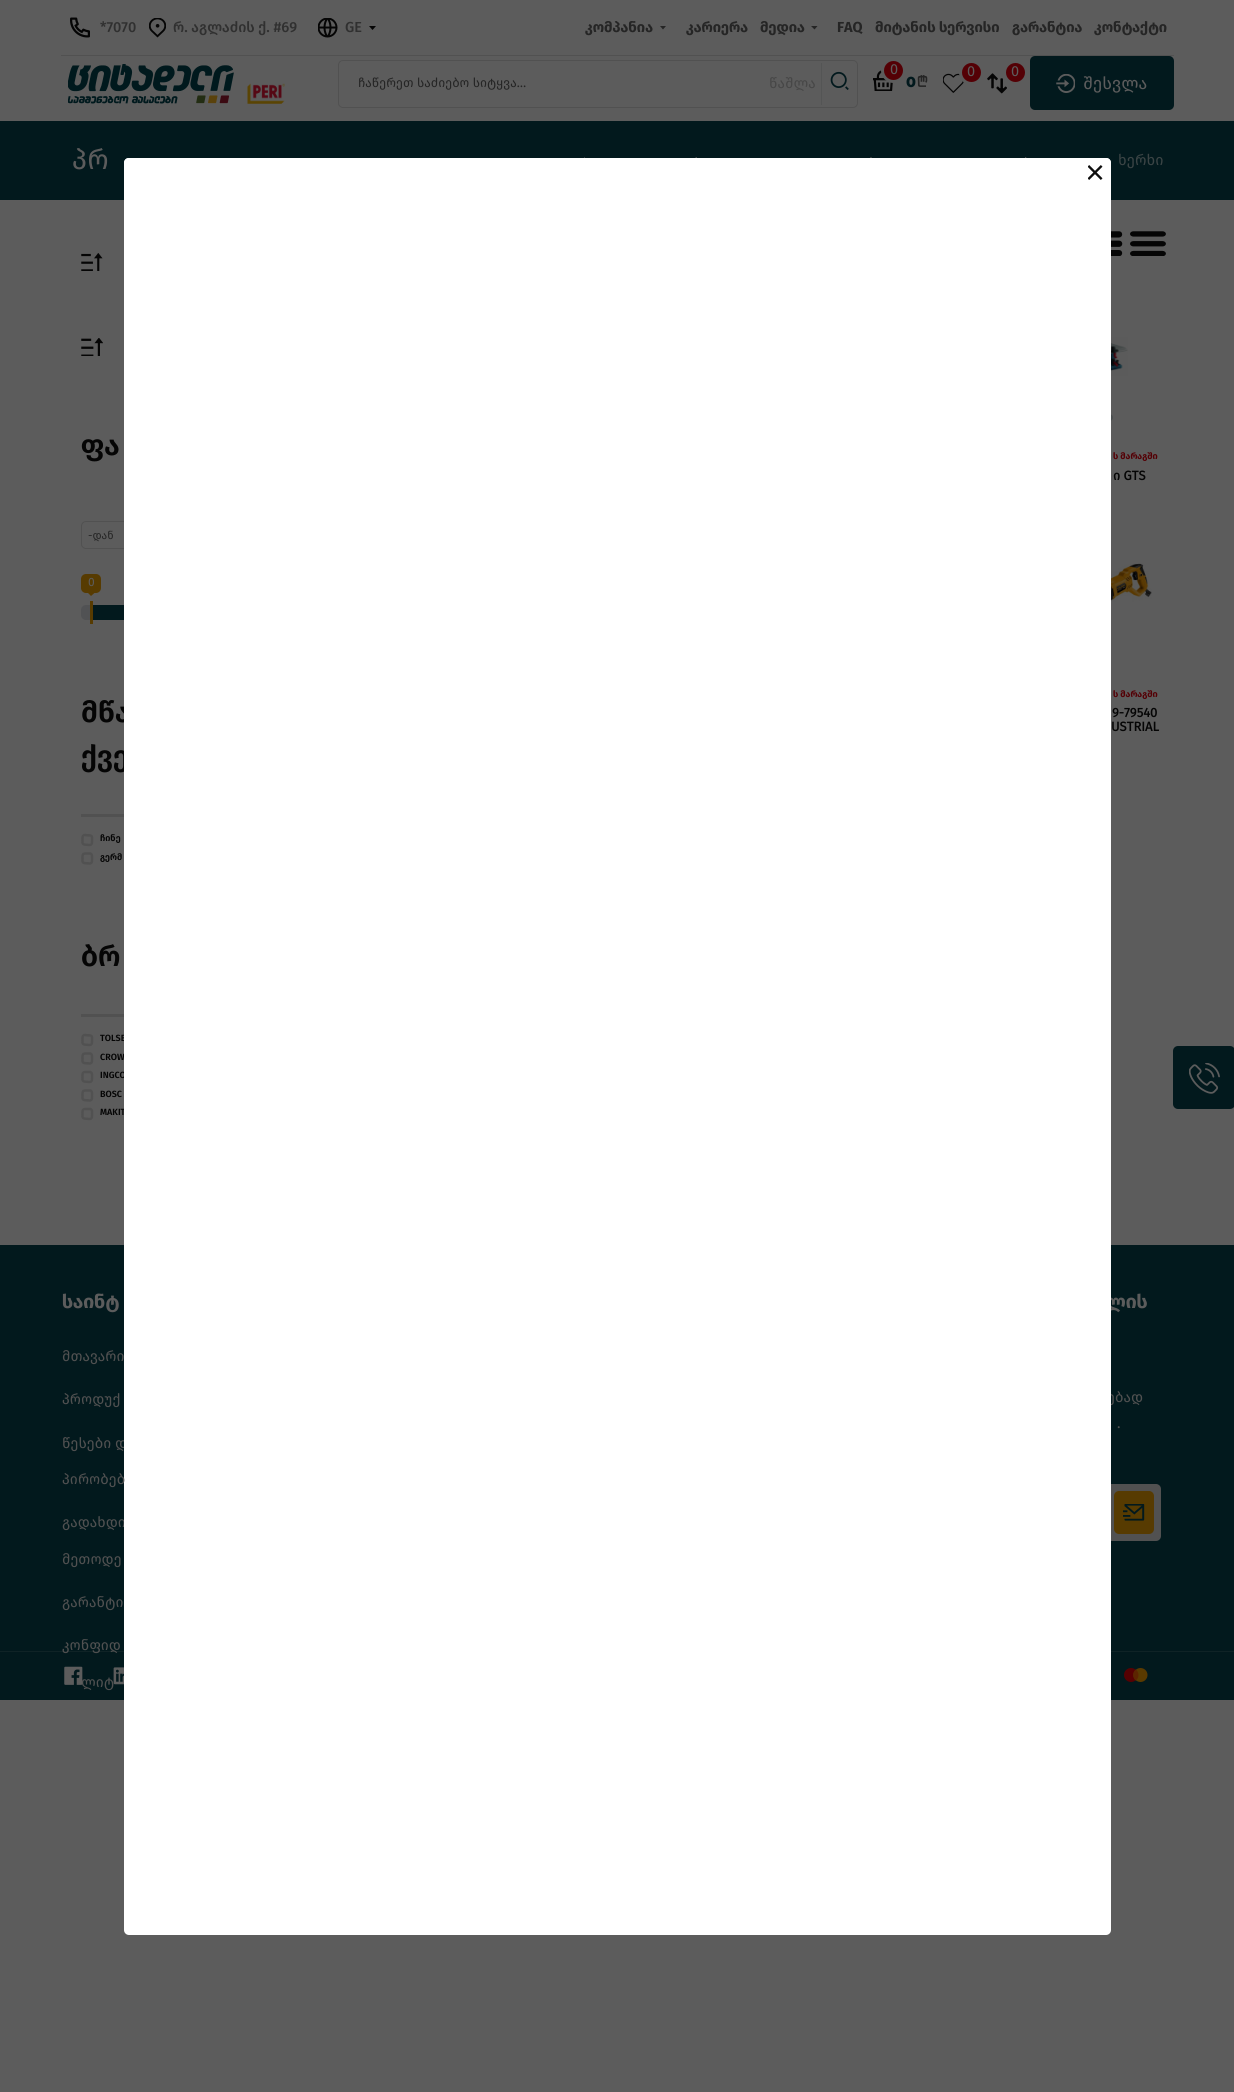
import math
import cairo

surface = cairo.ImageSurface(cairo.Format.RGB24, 1234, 2092)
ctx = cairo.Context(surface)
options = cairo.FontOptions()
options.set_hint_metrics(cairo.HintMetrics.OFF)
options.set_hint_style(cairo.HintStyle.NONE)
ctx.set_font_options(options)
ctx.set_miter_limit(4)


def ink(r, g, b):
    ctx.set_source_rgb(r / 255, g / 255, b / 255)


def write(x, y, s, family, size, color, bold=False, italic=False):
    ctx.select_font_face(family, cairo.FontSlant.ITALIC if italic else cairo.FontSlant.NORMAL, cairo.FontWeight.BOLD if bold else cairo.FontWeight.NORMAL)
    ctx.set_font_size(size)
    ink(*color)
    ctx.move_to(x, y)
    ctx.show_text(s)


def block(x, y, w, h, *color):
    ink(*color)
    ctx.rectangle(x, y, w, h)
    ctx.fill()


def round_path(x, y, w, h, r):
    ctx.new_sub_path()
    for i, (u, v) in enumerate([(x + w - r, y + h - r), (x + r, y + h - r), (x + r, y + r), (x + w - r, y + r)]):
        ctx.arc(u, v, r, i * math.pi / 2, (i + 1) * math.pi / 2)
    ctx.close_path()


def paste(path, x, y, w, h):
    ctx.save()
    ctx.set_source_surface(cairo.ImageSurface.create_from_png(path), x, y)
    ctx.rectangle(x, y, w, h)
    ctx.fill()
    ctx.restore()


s1 = dict(family="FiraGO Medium", size=14.5, color=(48, 48, 48))
s2 = dict(family="FiraGO", size=14.5, color=(37, 37, 37), bold=True)
s3 = dict(family="FiraGO", size=14.5, color=(92, 92, 92))
s4 = dict(family="Montserrat ExtraBold", size=14.5, color=(2, 25, 29))
s5 = dict(family="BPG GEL", size=14.5, color=(37, 37, 37), bold=True)
s6 = dict(family="FiraGO", size=12.7, color=(37, 37, 37))
s7 = dict(family="FiraGO", size=14.5, color=(71, 71, 71))
s8 = dict(family="FiraGO", size=17, color=(92, 92, 92))
s9 = dict(family="FiraGO", size=28, color=(92, 92, 92))
s10 = dict(family="FiraGO", size=15, color=(59, 68, 69))
s11 = dict(family="FiraGO SemiBold", size=29, color=(5, 5, 5))
s12 = dict(family="FiraGO SemiBold", size=9, color=(5, 5, 5))
s13 = dict(family="FiraGO", size=14.5, color=(81, 81, 81))
s14 = dict(family="FiraGO", size=19, color=(92, 92, 92), bold=True)
s15 = dict(family="FiraGO", size=11, color=(37, 37, 37))
s16 = dict(family="FiraGO", size=12, color=(92, 92, 92))
s17 = dict(family="FiraGO", size=9, color=(84, 0, 5), bold=True)
s18 = dict(family="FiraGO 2", size=13, color=(5, 5, 5), bold=True)

ink(92, 92, 92)
ctx.paint()
block(61, 55, 1113, 1, 81, 81, 81)
paste("pic1.png", 70, 17, 20, 21)
write(100, 32, "*7070", **s1)
paste("pic2.png", 149, 18, 17, 20)
write(173, 32, "რ. აგლაძის ქ. #69", **s1)
paste("pic3.png", 318, 18, 20, 20)
write(345, 32, "GE", **s1)
ink(5, 5, 5)
ctx.new_path()
ctx.move_to(372.5, 30)
ctx.line_to(369, 26)
ctx.line_to(376, 26)
ctx.close_path()
ctx.fill()
write(585, 32, "კომპანია", **s2)
ctx.new_path()
ctx.move_to(663, 29.5)
ctx.line_to(660, 26)
ctx.line_to(666, 26)
ctx.close_path()
ctx.fill()
write(686, 32, "კარიერა", **s2)
write(760, 32, "მედია", **s2)
ctx.new_path()
ctx.move_to(814.5, 29.5)
ctx.line_to(811, 26)
ctx.line_to(817.5, 26)
ctx.close_path()
ctx.fill()
write(837, 32, "FAQ", **s2)
write(875, 32, "მიტანის სერვისი", **s2)
write(1012, 32, "გარანტია", **s2)
write(1094, 32, "კონტაქტი", **s2)
paste("pic4.png", 68, 64, 166, 40)
paste("pic5.png", 247, 83, 38, 21)
paste("pic6.png", 873, 70, 20, 21)
ink(84, 0, 5)
ctx.arc(893.5, 70.5, 11, 0, 2 * math.pi)
ctx.fill_preserve()
ink(92, 92, 92)
ctx.set_line_width(3)
ctx.stroke()
write(890, 74, "0", **s3)
write(906, 87, "0", **s4)
write(916, 87, "o", **s5)
paste("pic7.png", 943, 73, 21, 20)
ink(84, 0, 5)
ctx.arc(971.5, 72.5, 11, 0, 2 * math.pi)
ctx.fill_preserve()
ink(92, 92, 92)
ctx.stroke()
write(967, 76, "0", **s3)
paste("pic8.png", 987, 73, 20, 21)
ink(84, 0, 5)
ctx.arc(1015.5, 72.5, 11, 0, 2 * math.pi)
ctx.fill_preserve()
ink(92, 92, 92)
ctx.stroke()
write(1011, 76, "0", **s3)
round_path(338.5, 60.5, 519, 47, 4.5)
ink(81, 81, 81)
ctx.set_line_width(1)
ctx.stroke()
write(358, 87, "ჩაწერეთ საძიებო სიტყვა…", **s6)
block(821, 63, 1, 42, 84, 85, 85)
write(769, 88, "წაშლა", **s7)
paste("pic9.png", 830, 71, 19, 19)
ink(2, 25, 29)
round_path(1030, 56, 144, 54, 5)
ctx.fill()
paste("pic10.png", 1056, 74, 19, 19)
write(1083, 89, "შესვლა", **s8)
block(0, 121, 1234, 79, 2, 25, 29)
write(72, 169, "პრ", **s9)
paste("pic11.png", 584, 157, 1, 1)
paste("pic12.png", 695, 157, 2, 1)
paste("pic13.png", 870, 157, 2, 1)
paste("pic14.png", 1025, 157, 2, 1)
write(1118, 165, "ხერხი", **s10)
round_path(81.5, 521.5, 111, 27, 4.5)
ink(81, 81, 81)
ctx.stroke()
ink(81, 82, 84)
round_path(81, 605, 233, 15, 5)
ctx.fill()
write(81, 722, "მწა", **s11)
write(81, 766, "ქვე", **s11)
write(100, 1041, "TOLSE", **s12)
write(100, 1060, "CROW", **s12)
write(100, 1078, "INGCO", **s12)
write(100, 1115, "MAKIT", **s12)
ink(74, 78, 79)
round_path(1105, 414, 8, 7, 3.5)
ctx.fill()
block(0, 1245, 1234, 455, 2, 25, 29)
block(0, 1651, 1234, 1, 15, 35, 38)
write(62, 1448, "წესები დ", **s13)
write(62, 1527, "გადახდი", **s13)
write(1106, 1308, "ლის", **s14)
write(1107, 1402, "ებად", **s13)
round_path(951, 1484, 210, 57, 5)
ctx.fill()
ink(255, 255, 255)
round_path(124, 158, 987, 1777, 5)
ctx.fill()
ctx.new_path()
ctx.move_to(129, 158)
ctx.line_to(1106, 158)
ctx.curve_to(1109, 158, 1111, 160, 1111, 163)
ctx.line_to(1111, 191)
ctx.line_to(124, 191)
ctx.line_to(124, 163)
ctx.curve_to(124, 160, 126, 158, 129, 158)
ctx.close_path()
ctx.fill()
paste("pic15.png", 1088, 165, 15, 15)
paste("pic16.png", 81, 253, 22, 18)
paste("pic17.png", 81, 338, 22, 18)
write(81, 455, "ფა", **s11)
write(88, 539, "-დან", **s15)
ink(87, 59, 1)
round_path(81, 574, 20, 19, 5)
ctx.fill()
write(88, 586, "0", **s16)
ink(87, 59, 1)
ctx.new_path()
ctx.move_to(87.5, 592.5)
ctx.line_to(95, 592.5)
ctx.line_to(91, 596)
ctx.close_path()
ctx.fill()
block(90, 601, 3, 23, 87, 59, 1)
block(93, 605, 31, 15, 2, 25, 29)
block(81, 814, 43, 3, 81, 81, 81)
ctx.new_path()
ctx.move_to(89.5, 845)
ctx.line_to(84, 844.5)
ctx.curve_to(82, 844, 82.5, 841.5, 82.5, 840)
ctx.curve_to(82.5, 838, 82, 835, 85, 835)
ctx.line_to(90.5, 835.5)
ctx.curve_to(92.5, 836, 92, 838.5, 92, 840)
ctx.curve_to(92, 842, 92.5, 845, 89.5, 845)
ctx.close_path()
ctx.set_line_width(2.5)
ctx.stroke()
write(100, 841, "ჩინე", **s12)
ctx.new_path()
ctx.move_to(89.5, 863.5)
ctx.line_to(84, 863)
ctx.curve_to(82, 862.5, 82.5, 860, 82.5, 858.5)
ctx.curve_to(82.5, 856.5, 82, 853.5, 85, 853.5)
ctx.line_to(90.5, 853.5)
ctx.curve_to(92.5, 854.5, 92, 857, 92, 858.5)
ctx.curve_to(92, 860.5, 92.5, 863.5, 89.5, 863.5)
ctx.close_path()
ink(81, 81, 81)
ctx.stroke()
write(100, 860, "გერმ", **s12)
block(81, 1014, 43, 3, 81, 81, 81)
write(81, 966, "ბრ", **s11)
ctx.new_path()
ctx.move_to(89.5, 1045)
ctx.line_to(84, 1044.5)
ctx.curve_to(82, 1044, 82.5, 1041.5, 82.5, 1040)
ctx.curve_to(82.5, 1038, 82, 1035, 85, 1035)
ctx.line_to(90.5, 1035.5)
ctx.curve_to(92.5, 1036, 92, 1038.5, 92, 1040)
ctx.curve_to(92, 1042, 92.5, 1045, 89.5, 1045)
ctx.close_path()
ink(81, 81, 81)
ctx.stroke()
ctx.new_path()
ctx.move_to(89.5, 1063.5)
ctx.line_to(84, 1063)
ctx.curve_to(82, 1062.5, 82.5, 1060, 82.5, 1058.5)
ctx.curve_to(82.5, 1056.5, 82, 1053.5, 85, 1053.5)
ctx.line_to(90.5, 1053.5)
ctx.curve_to(92.5, 1054.5, 92, 1057, 92, 1058.5)
ctx.curve_to(92, 1060.5, 92.5, 1063.5, 89.5, 1063.5)
ctx.close_path()
ctx.stroke()
ctx.new_path()
ctx.move_to(89.5, 1082)
ctx.line_to(84, 1081.5)
ctx.curve_to(82, 1081, 82.5, 1078.5, 82.5, 1077)
ctx.curve_to(82.5, 1075, 82, 1072, 85, 1072)
ctx.line_to(90.5, 1072)
ctx.curve_to(92.5, 1073, 92, 1075.5, 92, 1077)
ctx.curve_to(92, 1079, 92.5, 1082, 89.5, 1082)
ctx.close_path()
ctx.stroke()
ctx.new_path()
ctx.move_to(89.5, 1100.5)
ctx.line_to(84, 1100)
ctx.curve_to(82, 1099.5, 82.5, 1097, 82.5, 1095.5)
ctx.curve_to(82.5, 1093.5, 82, 1090.5, 85, 1090.5)
ctx.line_to(90.5, 1090.5)
ctx.curve_to(92.5, 1091.5, 92, 1093.5, 92, 1095.5)
ctx.curve_to(92, 1097.5, 92.5, 1100.5, 89.5, 1100.5)
ctx.close_path()
ctx.stroke()
write(100, 1097, "BOSC", **s12)
ctx.new_path()
ctx.move_to(89.5, 1119)
ctx.line_to(84, 1118.5)
ctx.curve_to(82, 1118, 82.5, 1115.5, 82.5, 1114)
ctx.curve_to(82.5, 1112, 82, 1109, 85, 1109)
ctx.line_to(90.5, 1109)
ctx.curve_to(92.5, 1110, 92, 1112, 92, 1114)
ctx.curve_to(92, 1116, 92.5, 1119, 89.5, 1119)
ctx.close_path()
ink(81, 81, 81)
ctx.stroke()
paste("pic18.png", 1111, 231, 12, 25)
paste("pic19.png", 1130, 231, 36, 25)
paste("pic20.png", 1111, 337, 17, 39)
write(1113, 459, "ს მარაგში", **s17)
write(1113, 480, "ი GTS", **s18)
paste("pic21.png", 1111, 563, 41, 58)
write(1113, 697, "ს მარაგში", **s17)
write(1112, 717, "9-79540", **s18)
write(1111, 731, "USTRIAL", **s18)
ink(2, 25, 29)
round_path(1173, 1046, 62, 63, 5)
ctx.fill()
paste("pic22.png", 1189, 1063, 31, 31)
write(62, 1308, "საინტ", **s14)
write(62, 1361, "მთავარი", **s13)
write(62, 1404, "პროდუქ", **s13)
write(62, 1484, "პირობებ", **s13)
write(62, 1564, "მეთოდე", **s13)
write(62, 1607, "გარანტი", **s13)
write(62, 1650, "კონფიდ", **s13)
write(81, 1687, "ლიტ", **s13)
write(1117, 1428, ".", **s13)
ink(87, 59, 1)
round_path(1114, 1491, 40, 43, 5)
ctx.fill()
paste("pic23.png", 1123, 1504, 22, 17)
paste("pic24.png", 64, 1666, 19, 19)
paste("pic25.png", 113, 1667, 11, 18)
paste("pic26.png", 1124, 1668, 24, 14)
surface.write_to_png("screenshot.png")
